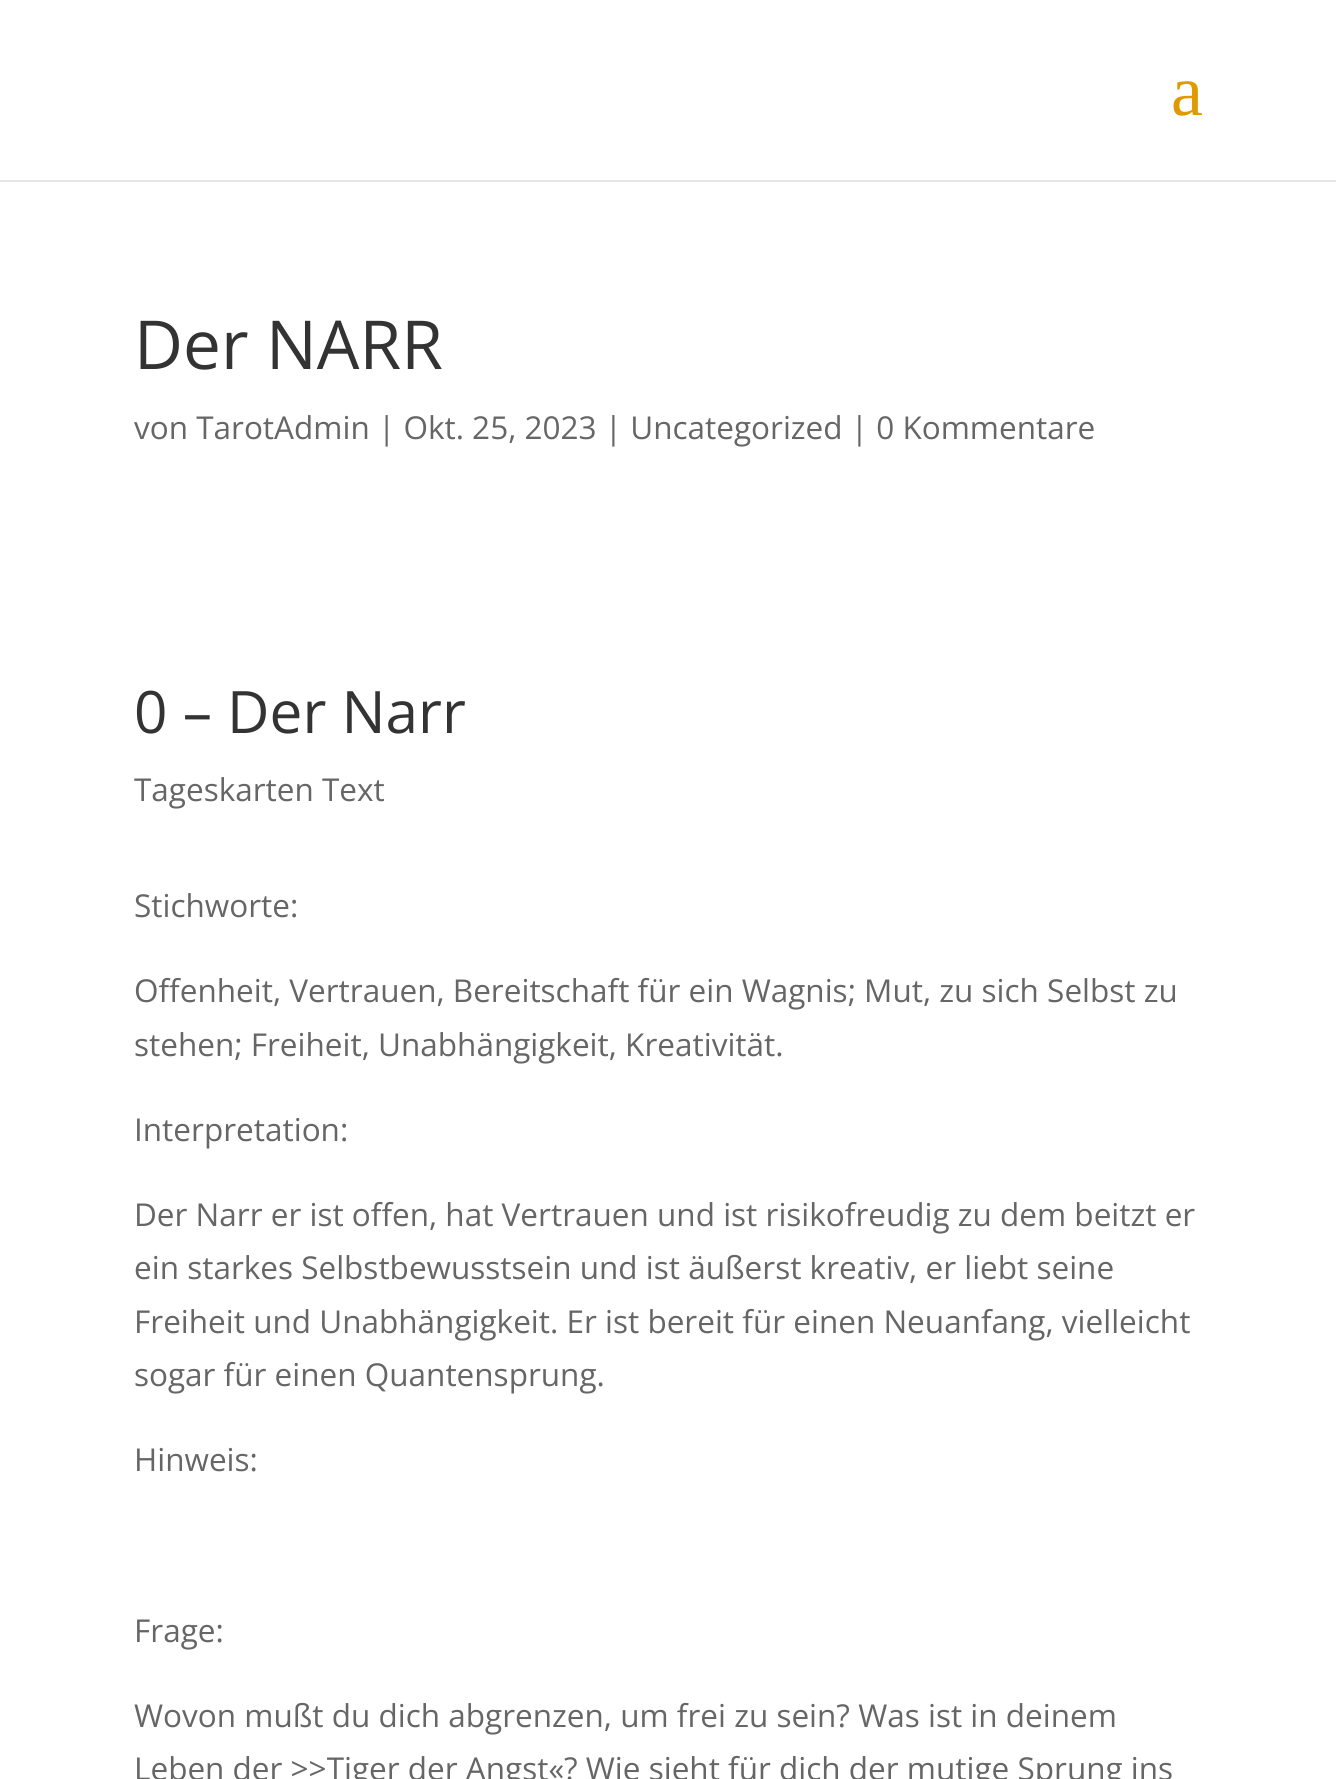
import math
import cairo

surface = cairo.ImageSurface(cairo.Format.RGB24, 1336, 1779)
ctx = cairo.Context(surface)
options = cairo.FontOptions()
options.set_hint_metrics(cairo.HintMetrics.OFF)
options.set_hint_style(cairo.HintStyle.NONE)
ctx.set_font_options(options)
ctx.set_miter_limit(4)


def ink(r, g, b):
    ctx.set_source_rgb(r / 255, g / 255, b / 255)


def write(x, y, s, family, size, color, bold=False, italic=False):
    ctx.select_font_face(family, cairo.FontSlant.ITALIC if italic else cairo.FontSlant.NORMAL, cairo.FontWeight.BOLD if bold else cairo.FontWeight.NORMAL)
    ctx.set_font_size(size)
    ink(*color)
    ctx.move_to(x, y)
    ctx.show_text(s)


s1 = dict(family="Liberation Serif", size=72, color=(224, 153, 0))
s2 = dict(family="Open Sans", size=67.5, color=(51, 51, 51))
s3 = dict(family="Open Sans", size=31.5, color=(102, 102, 102))
s4 = dict(family="Open Sans", size=58.5, color=(51, 51, 51))

ink(255, 255, 255)
ctx.paint()
ink(230, 230, 230)
ctx.new_path()
ctx.move_to(0, 180)
ctx.line_to(0, 182)
ctx.line_to(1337, 182)
ctx.line_to(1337, 2)
ctx.line_to(1336, 2)
ctx.line_to(1336, 180)
ctx.close_path()
ctx.fill()
write(1171, 115, "a", **s1)
write(134, 369, "Der NARR", **s2)
write(134, 439, "von TarotAdmin | Okt. 25, 2023 | Uncategorized | 0 Kommentare", **s3)
write(134, 733, "0 – Der Narr", **s4)
write(134, 801, "Tageskarten Text", **s3)
write(134, 917, "Stichworte:", **s3)
write(134, 1002, "Offenheit, Vertrauen, Bereitschaft für ein Wagnis; Mut, zu sich Selbst zu", **s3)
write(134, 1056, "stehen; Freiheit, Unabhängigkeit, Kreativität.", **s3)
write(134, 1141, "Interpretation:", **s3)
write(134, 1226, "Der Narr er ist offen, hat Vertrauen und ist risikofreudig zu dem beitzt er", **s3)
write(134, 1279, "ein starkes Selbstbewusstsein und ist äußerst kreativ, er liebt seine", **s3)
write(134, 1333, "Freiheit und Unabhängigkeit. Er ist bereit für einen Neuanfang, vielleicht", **s3)
write(134, 1386, "sogar für einen Quantensprung.", **s3)
write(134, 1471, "Hinweis:", **s3)
write(134, 1642, "Frage:", **s3)
write(134, 1727, "Wovon mußt du dich abgrenzen, um frei zu sein? Was ist in deinem", **s3)
write(134, 1780, "Leben der >>Tiger der Angst«? Wie sieht für dich der mutige Sprung ins", **s3)
surface.write_to_png("screenshot.png")
